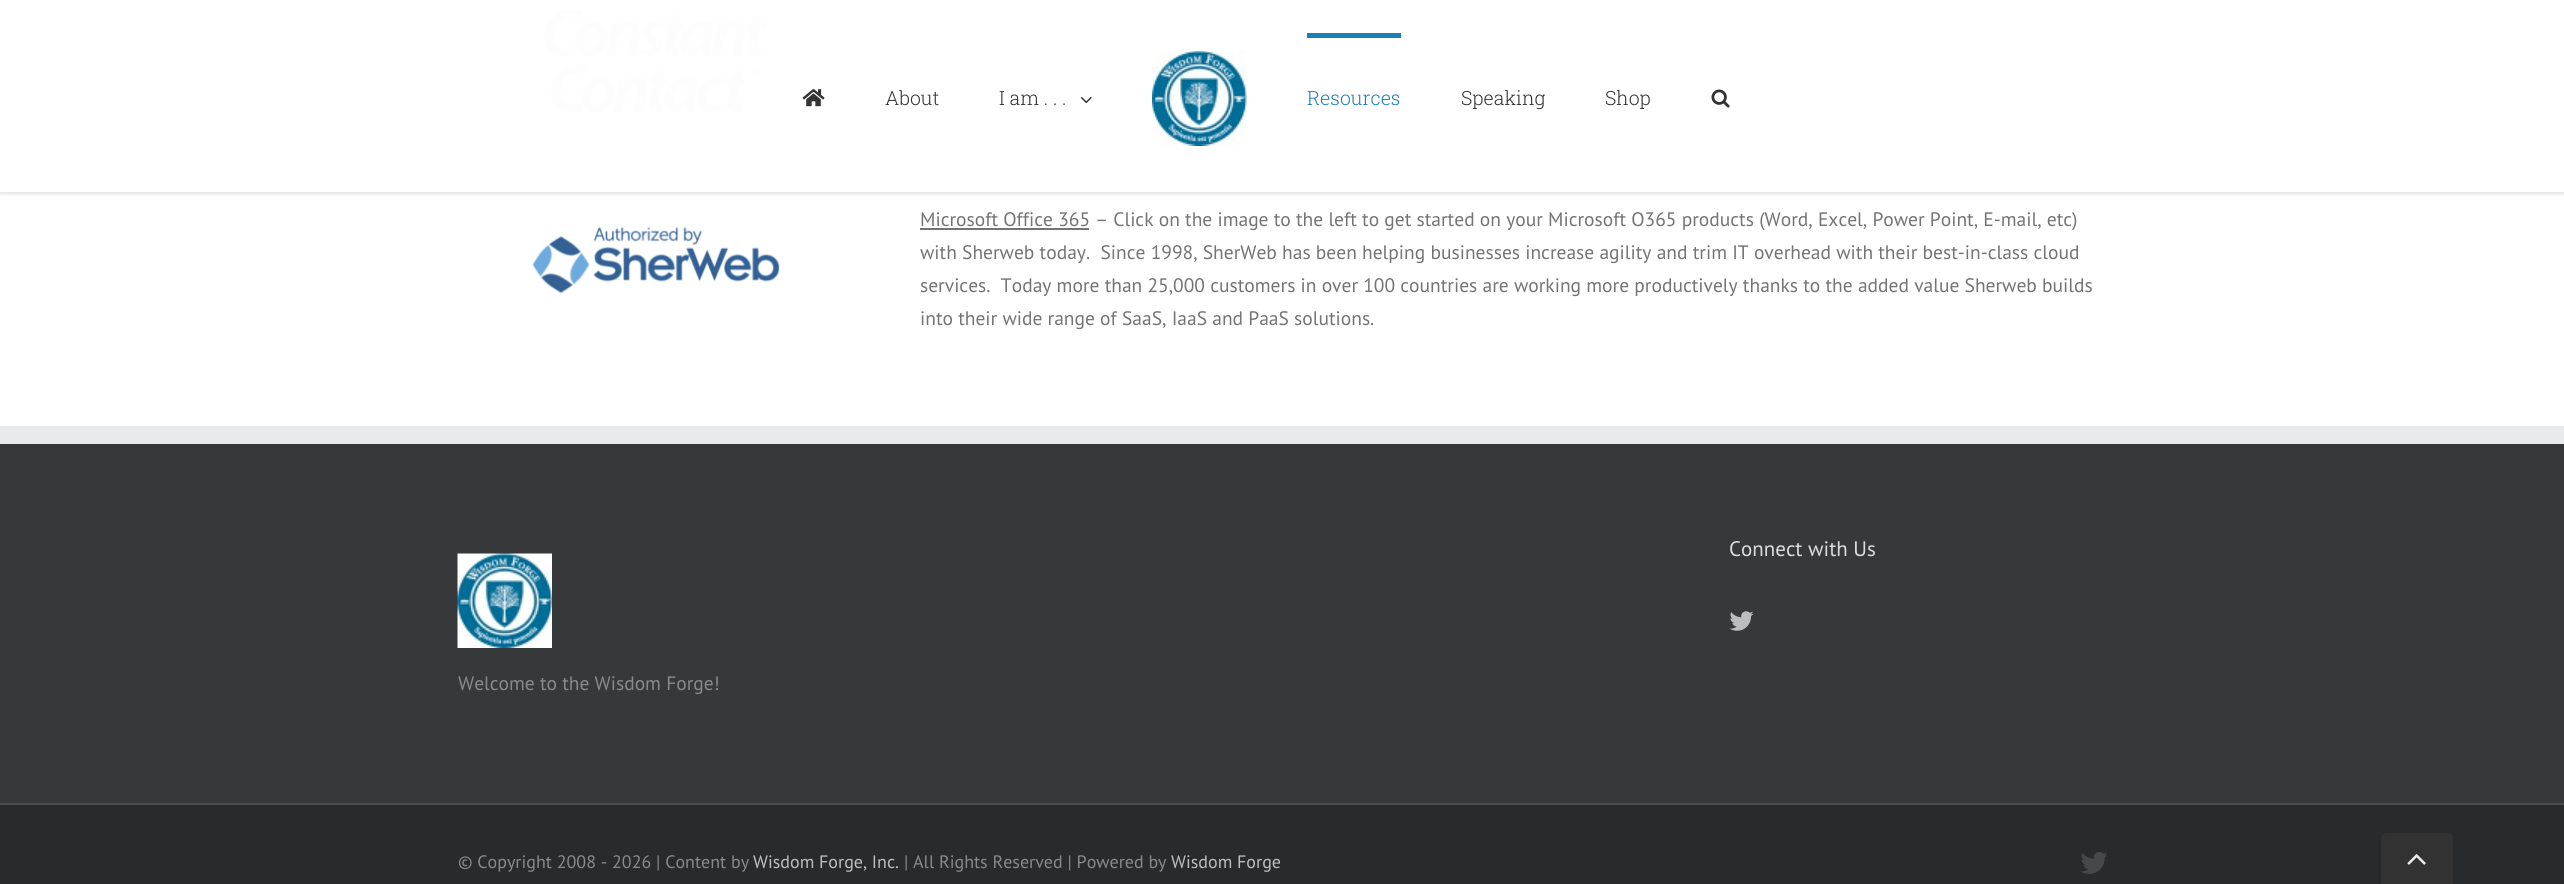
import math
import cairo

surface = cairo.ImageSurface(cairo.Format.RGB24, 2564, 884)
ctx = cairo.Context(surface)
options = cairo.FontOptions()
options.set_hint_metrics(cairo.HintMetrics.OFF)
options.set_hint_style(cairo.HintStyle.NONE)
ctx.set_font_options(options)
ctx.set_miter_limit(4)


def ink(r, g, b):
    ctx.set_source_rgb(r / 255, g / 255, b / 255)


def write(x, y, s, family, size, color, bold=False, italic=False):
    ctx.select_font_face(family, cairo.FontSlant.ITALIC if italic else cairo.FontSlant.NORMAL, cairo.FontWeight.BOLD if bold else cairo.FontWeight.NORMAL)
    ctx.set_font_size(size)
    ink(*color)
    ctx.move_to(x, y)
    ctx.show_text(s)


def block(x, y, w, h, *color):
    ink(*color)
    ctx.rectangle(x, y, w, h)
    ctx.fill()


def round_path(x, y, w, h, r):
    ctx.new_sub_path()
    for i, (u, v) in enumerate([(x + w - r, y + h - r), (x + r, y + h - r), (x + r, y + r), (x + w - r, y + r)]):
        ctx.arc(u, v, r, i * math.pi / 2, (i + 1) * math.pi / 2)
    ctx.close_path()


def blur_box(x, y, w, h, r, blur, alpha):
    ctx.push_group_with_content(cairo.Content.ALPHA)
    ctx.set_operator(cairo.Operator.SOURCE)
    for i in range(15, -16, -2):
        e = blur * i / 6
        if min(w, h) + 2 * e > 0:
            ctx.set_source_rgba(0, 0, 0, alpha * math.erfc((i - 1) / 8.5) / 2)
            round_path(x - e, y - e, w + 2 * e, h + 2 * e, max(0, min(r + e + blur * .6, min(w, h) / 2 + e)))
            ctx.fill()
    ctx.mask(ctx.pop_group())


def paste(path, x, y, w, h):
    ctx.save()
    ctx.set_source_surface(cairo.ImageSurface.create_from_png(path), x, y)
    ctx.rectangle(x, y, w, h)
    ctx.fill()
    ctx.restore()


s1 = dict(family="Roboto Slab Light", size=19.5, color=(51, 51, 51))
s2 = dict(family="Roboto Slab Light", size=19.5, color=(26, 128, 182))
s3 = dict(family="PT Sans", size=19.5, color=(116, 116, 116))
s4 = dict(family="PT Sans", size=21, color=(221, 221, 221))
s5 = dict(family="PT Sans", size=19.5, color=(140, 137, 137))
s6 = dict(family="PT Sans", size=18, color=(140, 137, 137))
s7 = dict(family="PT Sans", size=18, color=(191, 191, 191))

ink(255, 255, 255)
ctx.paint()
paste("pic5.png", 544, 0, 225, 113)
ctx.save()
ctx.rectangle(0, 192, 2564, 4)
ctx.clip()
ink(0, 0, 0)
blur_box(0, 2, 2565, 192, 0, 2, 0.12)
ctx.restore()
paste("pic1.png", 802, 89, 23, 18)
write(885, 105, "About", **s1)
write(999, 105, "I am . . .", **s1)
paste("pic2.png", 1080, 96, 12, 8)
paste("pic3.png", 1152, 51, 95, 95)
block(1307, 33, 94, 5, 26, 128, 182)
write(1307, 105, "Resources", **s2)
write(1461, 105, "Speaking", **s1)
write(1605, 105, "Shop", **s1)
paste("pic4.png", 1711, 89, 19, 19)
paste("pic6.png", 532, 226, 248, 68)
block(920, 228, 169, 2, 116, 116, 116)
write(920, 226, "Microsoft Office 365 – Click on the image to the left to get started on your Microsoft O365 products (Word, Excel, Power Point, E-mail, etc)", **s3)
write(920, 259, "with Sherweb today.  Since 1998, SherWeb has been helping businesses increase agility and trim IT overhead with their best-in-class cloud", **s3)
write(920, 292, "services.  Today more than 25,000 customers in over 100 countries are working more productively thanks to the added value Sherweb builds", **s3)
write(920, 325, "into their wide range of SaaS, IaaS and PaaS solutions.", **s3)
block(0, 444, 2564, 359, 54, 56, 57)
block(0, 426, 2564, 18, 233, 234, 238)
write(1729, 556, "Connect with Us", **s4)
paste("pic7.png", 1730, 611, 24, 20)
paste("pic8.png", 457, 553, 95, 95)
write(458, 690, "Welcome to the Wisdom Forge!", **s5)
block(0, 805, 2564, 79, 40, 42, 43)
block(0, 803, 2564, 2, 75, 76, 77)
write(458, 868, "© Copyright 2008 - 2026 | Content by", **s6)
write(753, 868, "Wisdom Forge, Inc.", **s7)
write(904, 868, "| All Rights Reserved | Powered by", **s6)
write(1171, 868, "Wisdom Forge", **s7)
paste("pic9.png", 2081, 852, 26, 22)
ink(50, 50, 50)
ctx.new_path()
ctx.move_to(2387, 833)
ctx.line_to(2447, 833)
ctx.curve_to(2450.5, 833, 2453, 835.5, 2453, 839)
ctx.line_to(2453, 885)
ctx.line_to(2381, 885)
ctx.line_to(2381, 839)
ctx.curve_to(2381, 835.5, 2383.5, 833, 2387, 833)
ctx.close_path()
ctx.fill()
paste("pic10.png", 2407, 854, 19, 11)
surface.write_to_png("screenshot.png")
